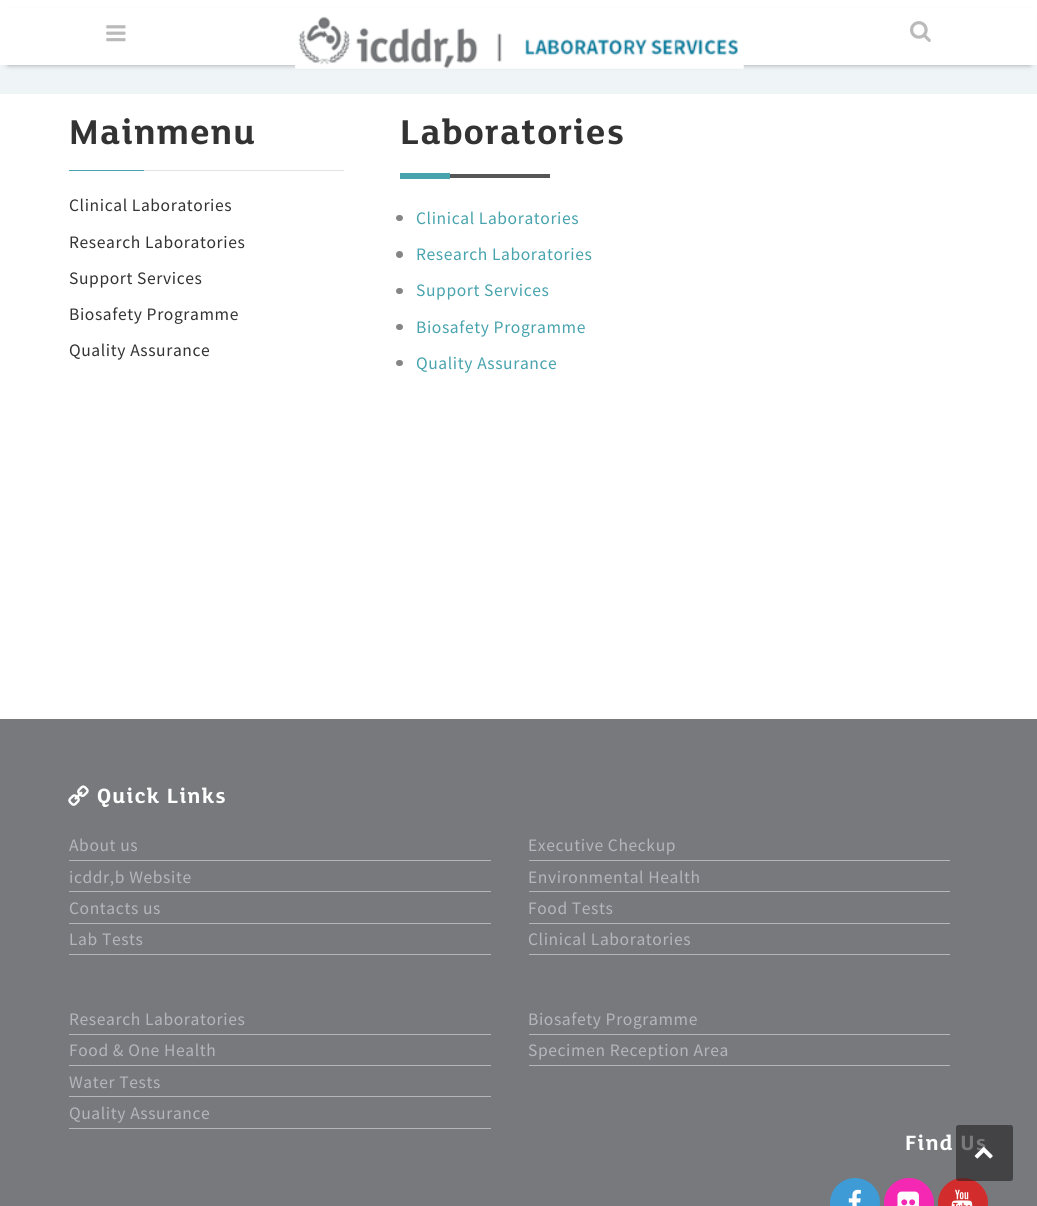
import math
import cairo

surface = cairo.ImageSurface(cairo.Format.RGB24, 1037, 1206)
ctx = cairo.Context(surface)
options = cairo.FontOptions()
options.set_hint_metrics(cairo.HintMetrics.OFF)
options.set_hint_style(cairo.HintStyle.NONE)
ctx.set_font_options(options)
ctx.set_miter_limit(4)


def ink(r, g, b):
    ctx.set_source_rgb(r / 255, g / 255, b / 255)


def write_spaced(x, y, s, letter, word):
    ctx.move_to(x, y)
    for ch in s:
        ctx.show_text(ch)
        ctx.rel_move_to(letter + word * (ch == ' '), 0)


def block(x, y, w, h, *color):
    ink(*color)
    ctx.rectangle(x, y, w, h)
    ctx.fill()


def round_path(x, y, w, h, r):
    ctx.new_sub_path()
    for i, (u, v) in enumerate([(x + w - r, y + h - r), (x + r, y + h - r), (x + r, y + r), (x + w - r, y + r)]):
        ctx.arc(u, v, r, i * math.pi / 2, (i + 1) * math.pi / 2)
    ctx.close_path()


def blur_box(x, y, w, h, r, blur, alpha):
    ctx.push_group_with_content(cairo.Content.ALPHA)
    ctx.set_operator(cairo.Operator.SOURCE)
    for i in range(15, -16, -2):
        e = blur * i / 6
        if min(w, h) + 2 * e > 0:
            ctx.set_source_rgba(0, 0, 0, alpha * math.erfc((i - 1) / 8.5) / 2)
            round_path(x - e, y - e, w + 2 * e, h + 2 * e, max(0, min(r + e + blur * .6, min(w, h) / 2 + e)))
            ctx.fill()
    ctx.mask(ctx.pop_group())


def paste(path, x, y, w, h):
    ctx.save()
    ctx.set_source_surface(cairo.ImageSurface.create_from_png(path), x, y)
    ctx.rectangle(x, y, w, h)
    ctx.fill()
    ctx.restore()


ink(255, 255, 255)
ctx.paint()
block(0, 65, 1037, 29, 239, 244, 247)
ink(0, 0, 0)
blur_box(8, 14, 1022, 50, 0, 3, 0.5)
block(2, 8, 1034, 57, 255, 255, 255)
paste("pic1.png", 106, 25, 20, 17)
paste("pic2.png", 295, 16, 449, 53)
paste("pic3.png", 910, 21, 21, 21)
ctx.select_font_face("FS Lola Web", cairo.FontSlant.NORMAL, cairo.FontWeight.BOLD)
ctx.set_font_size(37.5)
ink(51, 51, 51)
write_spaced(69, 144, "Mainmenu", 1.25, 0)
block(69, 170, 75, 1, 71, 163, 173)
block(144, 170, 200, 1, 227, 227, 227)
ctx.select_font_face("Source Sans Pro")
ctx.set_font_size(17.5)
ink(51, 51, 51)
write_spaced(69, 211, "Clinical Laboratories", 0.6, 0)
write_spaced(69, 248, "Research Laboratories", 0.6, 0)
write_spaced(69, 284, "Support Services", 0.6, 0)
write_spaced(69, 320, "Biosafety Programme", 0.6, 0)
write_spaced(69, 356, "Quality Assurance", 0.6, 0)
ctx.select_font_face("FS Lola Web", cairo.FontSlant.NORMAL, cairo.FontWeight.BOLD)
ctx.set_font_size(37.5)
write_spaced(400, 144, "Laboratories", 1.25, 0)
block(400, 173, 50, 6, 71, 163, 173)
block(450, 174, 100, 4, 86, 86, 86)
ink(133, 133, 133)
round_path(396, 215, 7, 6, 3)
ctx.fill()
ctx.select_font_face("Source Sans Pro")
ctx.set_font_size(17.5)
ink(71, 163, 173)
write_spaced(416, 224, "Clinical Laboratories", 0.6, 0)
ink(133, 133, 133)
ctx.new_path()
ctx.arc(399.5, 254.5, 3.5, 0, 2 * math.pi)
ctx.fill()
ink(71, 163, 173)
write_spaced(416, 260, "Research Laboratories", 0.6, 0)
ink(133, 133, 133)
round_path(396, 288, 7, 6, 3)
ctx.fill()
ink(71, 163, 173)
write_spaced(416, 296, "Support Services", 0.6, 0)
ink(133, 133, 133)
round_path(396, 324, 7, 6, 3)
ctx.fill()
ink(71, 163, 173)
write_spaced(416, 333, "Biosafety Programme", 0.6, 0)
ink(133, 133, 133)
round_path(396, 360, 7, 6, 3)
ctx.fill()
ink(71, 163, 173)
write_spaced(416, 369, "Quality Assurance", 0.6, 0)
block(0, 719, 1037, 487, 119, 121, 125)
paste("pic4.png", 68, 785, 21, 21)
ctx.select_font_face("FS Lola Web", cairo.FontSlant.NORMAL, cairo.FontWeight.BOLD)
ctx.set_font_size(22.5)
ink(255, 255, 255)
write_spaced(97, 803, "Quick Links", 1.25, 0)
block(69, 860, 422, 1, 181, 182, 188)
ctx.select_font_face("Source Sans Pro")
ctx.set_font_size(17.5)
write_spaced(69, 851, "About us", 0.6, 0)
block(69, 891, 422, 1, 181, 182, 188)
write_spaced(69, 883, "icddr,b Website", 0.6, 0)
block(69, 923, 422, 1, 181, 182, 188)
write_spaced(69, 914, "Contacts us", 0.6, 0)
block(69, 954, 422, 1, 181, 182, 188)
write_spaced(69, 945, "Lab Tests", 0.6, 0)
block(529, 860, 421, 1, 181, 182, 188)
write_spaced(528, 851, "Executive Checkup", 0.6, 0)
block(529, 891, 421, 1, 181, 182, 188)
write_spaced(528, 883, "Environmental Health", 0.6, 0)
block(529, 923, 421, 1, 181, 182, 188)
write_spaced(528, 914, "Food Tests", 0.6, 0)
block(529, 954, 421, 1, 181, 182, 188)
write_spaced(528, 945, "Clinical Laboratories", 0.6, 0)
block(69, 1034, 422, 1, 181, 182, 188)
write_spaced(69, 1025, "Research Laboratories", 0.6, 0)
block(69, 1065, 422, 1, 181, 182, 188)
write_spaced(69, 1056, "Food & One Health", 0.6, 0)
block(69, 1096, 422, 1, 181, 182, 188)
write_spaced(69, 1088, "Water Tests", 0.6, 0)
block(69, 1128, 422, 1, 181, 182, 188)
write_spaced(69, 1119, "Quality Assurance", 0.6, 0)
block(529, 1034, 421, 1, 181, 182, 188)
write_spaced(528, 1025, "Biosafety Programme", 0.6, 0)
block(529, 1065, 421, 1, 181, 182, 188)
write_spaced(528, 1056, "Specimen Reception Area", 0.6, 0)
ctx.select_font_face("FS Lola Web", cairo.FontSlant.NORMAL, cairo.FontWeight.BOLD)
ctx.set_font_size(22.5)
ink(255, 255, 255)
write_spaced(905, 1150, "Find Us", 1.25, 0)
ink(63, 155, 213)
ctx.new_path()
ctx.arc(855, 1203, 25, 0, 2 * math.pi)
ctx.fill()
paste("pic5.png", 848, 1189, 13, 17)
ink(244, 40, 179)
ctx.arc(909, 1203, 25, 0, 2 * math.pi)
ctx.fill()
paste("pic6.png", 897, 1191, 22, 15)
ink(210, 44, 44)
ctx.arc(963, 1203, 25, 0, 2 * math.pi)
ctx.fill()
paste("pic7.png", 951, 1189, 22, 17)
ctx.set_source_rgba(0.129, 0.129, 0.129, 0.6)
round_path(956, 1125, 57, 56, 2.5)
ctx.fill()
paste("pic8.png", 974, 1147, 19, 12)
surface.write_to_png("screenshot.png")
